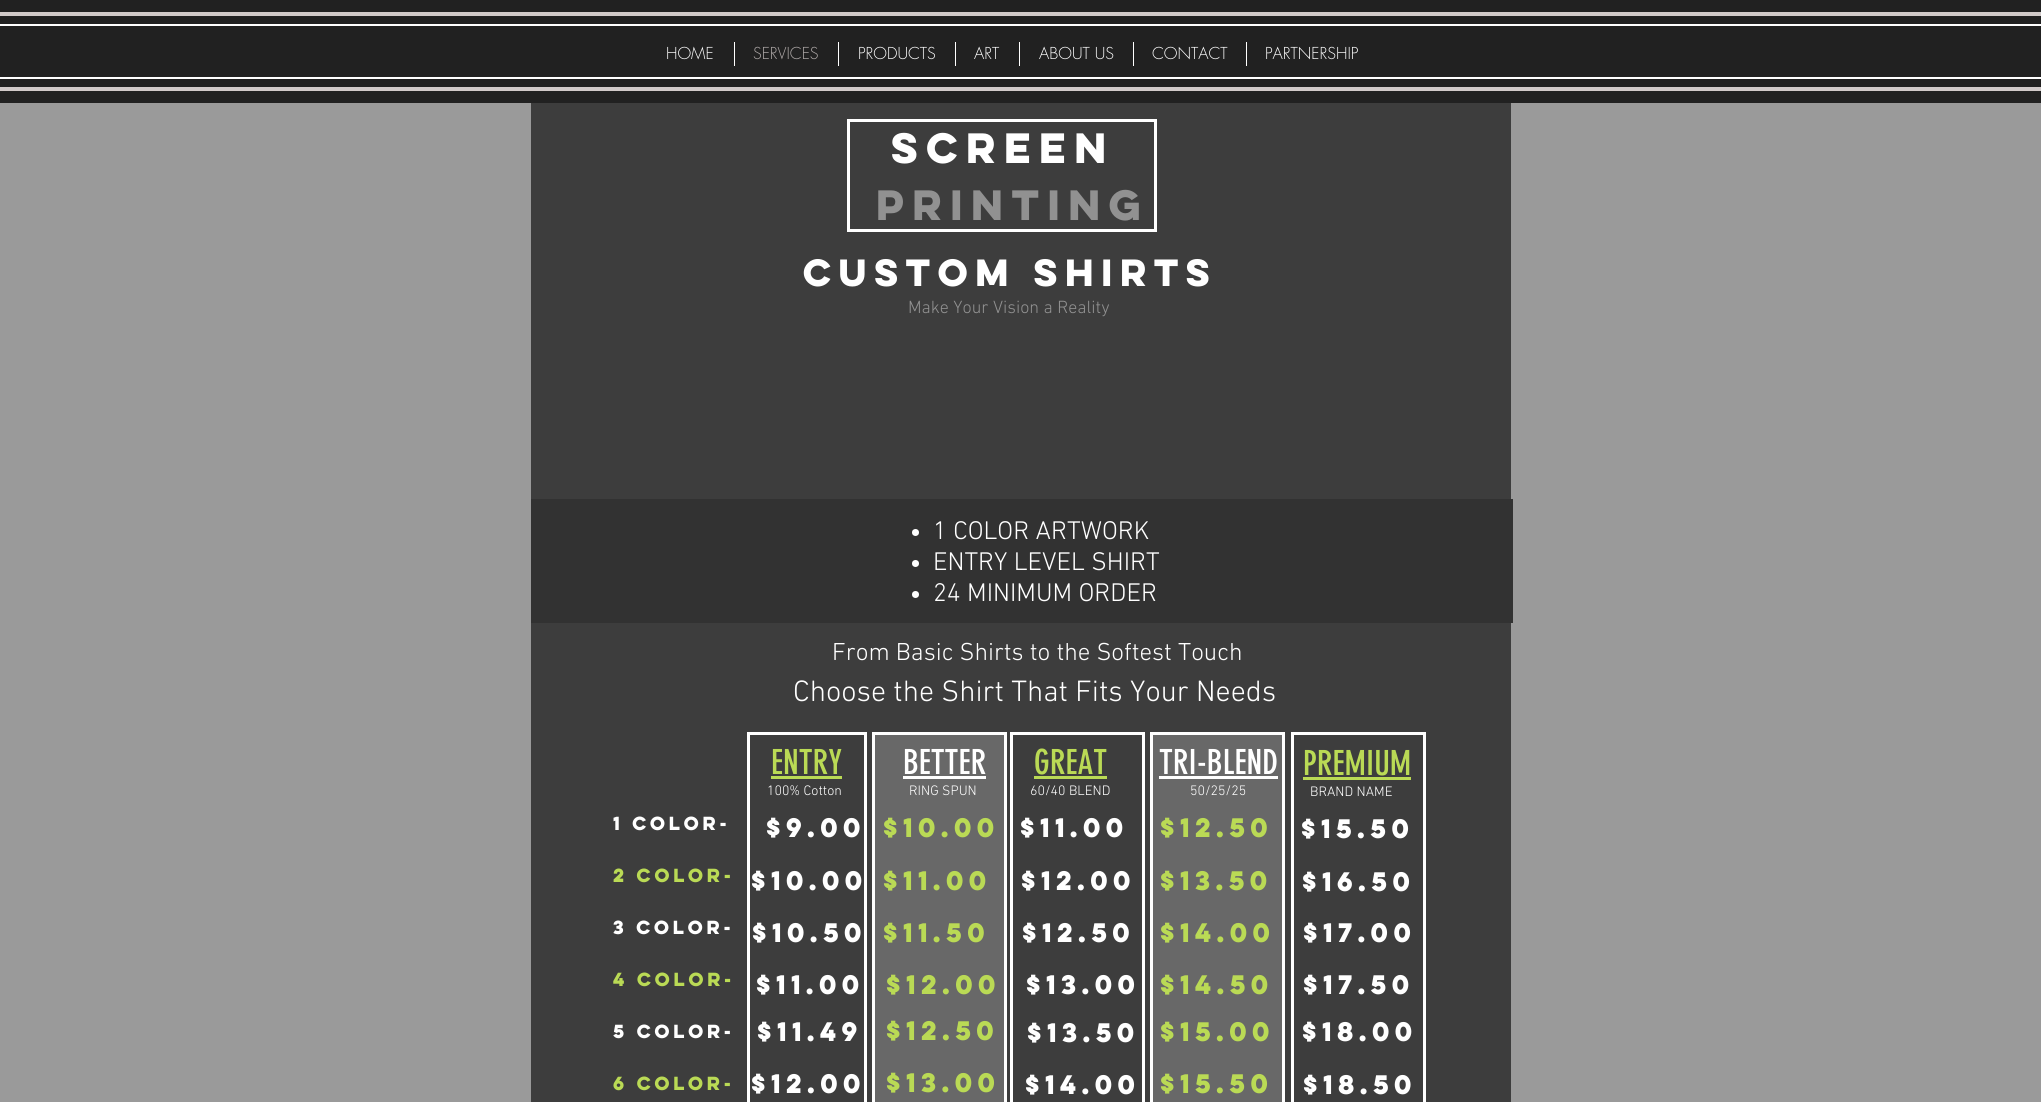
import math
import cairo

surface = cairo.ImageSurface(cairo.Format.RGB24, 2041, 1102)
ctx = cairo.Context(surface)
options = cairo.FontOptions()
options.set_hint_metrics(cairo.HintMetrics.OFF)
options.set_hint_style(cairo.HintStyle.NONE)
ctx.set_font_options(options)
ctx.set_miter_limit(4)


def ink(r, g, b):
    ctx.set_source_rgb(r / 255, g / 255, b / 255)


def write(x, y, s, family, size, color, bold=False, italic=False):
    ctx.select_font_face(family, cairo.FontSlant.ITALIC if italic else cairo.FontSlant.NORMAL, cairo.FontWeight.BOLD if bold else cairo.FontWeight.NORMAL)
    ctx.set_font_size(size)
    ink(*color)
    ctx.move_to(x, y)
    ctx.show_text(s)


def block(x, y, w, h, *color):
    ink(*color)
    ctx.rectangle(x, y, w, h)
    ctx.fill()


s1 = dict(family="futura Light", size=16, color=(255, 255, 255))
s2 = dict(family="futura Light", size=16, color=(176, 170, 169))
s3 = dict(family="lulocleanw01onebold", size=38, color=(255, 255, 255), bold=True)
s4 = dict(family="lulocleanw01onebold", size=38, color=(145, 145, 145), bold=True)
s5 = dict(family="lulocleanw01onebold", size=34, color=(255, 255, 255), bold=True)
s6 = dict(family="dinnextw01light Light", size=18, color=(145, 145, 145))
s7 = dict(family="dinnextw01light Light", size=26, color=(255, 255, 255))
s8 = dict(family="dinnextw01light Light", size=25, color=(255, 255, 255))
s9 = dict(family="dinnextw01light Light", size=30, color=(255, 255, 255))
s10 = dict(family="lulocleanw01onebold", size=17, color=(255, 255, 255), bold=True)
s11 = dict(family="lulocleanw01onebold", size=17, color=(186, 218, 85), bold=True)
s12 = dict(family="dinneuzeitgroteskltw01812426", size=34, color=(186, 218, 85))
s13 = dict(family="dinnextw01light Light", size=14, color=(255, 255, 255))
s14 = dict(family="lulocleanw01onebold", size=24, color=(255, 255, 255), bold=True)
s15 = dict(family="dinneuzeitgroteskltw01812426", size=34, color=(255, 255, 255))
s16 = dict(family="lulocleanw01onebold", size=24, color=(186, 218, 85), bold=True)

ink(154, 154, 154)
ctx.paint()
block(0, 0, 2041, 103, 33, 33, 33)
block(0, 12, 2041, 4, 209, 202, 201)
block(0, 87, 2041, 4, 209, 202, 201)
block(0, 24, 2041, 2, 255, 255, 255)
block(0, 77, 2041, 2, 255, 255, 255)
write(666, 59, "HOME", **s1)
block(734, 42, 1, 24, 255, 255, 255)
write(753, 59, "SERVICES", **s2)
block(838, 42, 1, 24, 255, 255, 255)
write(858, 59, "PRODUCTS", **s1)
block(955, 42, 1, 24, 255, 255, 255)
write(974, 59, "ART", **s1)
block(1019, 42, 1, 24, 255, 255, 255)
write(1039, 59, "ABOUT US", **s1)
block(1133, 42, 1, 24, 255, 255, 255)
write(1152, 59, "CONTACT", **s1)
block(1246, 42, 1, 24, 255, 255, 255)
write(1265, 59, "PARTNERSHIP", **s1)
block(531, 103, 980, 999, 61, 61, 61)
ctx.rectangle(848.5, 120.5, 307, 110)
ink(255, 255, 255)
ctx.set_line_width(3)
ctx.stroke()
write(891, 163, "Screen", **s3)
write(876, 220, "Printing", **s4)
write(803, 286, "Custom Shirts", **s5)
write(908, 313, "Make Your Vision a Reality", **s6)
block(531, 499, 982, 124, 50, 50, 50)
ink(255, 255, 255)
ctx.new_path()
ctx.arc(915.5, 532.5, 3.5, 0, 2 * math.pi)
ctx.fill()
write(933, 539, "1 COLOR ARTWORK", **s7)
ctx.new_path()
ctx.arc(915.5, 563.5, 3.5, 0, 2 * math.pi)
ctx.fill()
write(933, 570, "ENTRY LEVEL SHIRT", **s7)
ctx.new_path()
ctx.arc(915.5, 594.5, 3.5, 0, 2 * math.pi)
ctx.fill()
write(933, 601, "24 MINIMUM ORDER", **s7)
write(832, 660, "From Basic Shirts to the Softest Touch", **s8)
write(793, 701, "Choose the Shirt That Fits Your Needs", **s9)
write(613, 830, "1 Color-", **s10)
write(613, 882, "2 Color-", **s11)
write(613, 934, "3 Color-", **s10)
write(613, 986, "4 Color-", **s11)
write(613, 1038, "5 Color-", **s10)
write(613, 1090, "6 Color-", **s11)
ctx.rectangle(748.5, 733.5, 117, 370)
ink(255, 255, 255)
ctx.stroke()
write(771, 774, "ENTRY", **s12)
block(771, 776, 71, 3, 186, 218, 85)
write(767, 795, "100% Cotton", **s13)
write(766, 837, "$9.00", **s14)
write(751, 890, "$10.00", **s14)
write(752, 942, "$10.50", **s14)
write(756, 994, "$11.00", **s14)
write(757, 1041, "$11.49", **s14)
write(751, 1093, "$12.00", **s14)
ink(104, 104, 104)
ctx.rectangle(873.5, 733.5, 132, 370)
ctx.fill_preserve()
ink(255, 255, 255)
ctx.stroke()
write(903, 774, "BETTER", **s15)
block(903, 776, 83, 3, 255, 255, 255)
write(909, 795, "RING SPUN", **s13)
write(883, 837, "$10.00", **s16)
write(883, 890, "$11.00", **s16)
write(883, 942, "$11.50", **s16)
write(886, 994, "$12.00", **s16)
write(886, 1040, "$12.50", **s16)
write(886, 1092, "$13.00", **s16)
ctx.rectangle(1011.5, 733.5, 132, 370)
ink(255, 255, 255)
ctx.stroke()
write(1034, 774, "GREAT", **s12)
block(1034, 776, 73, 3, 186, 218, 85)
write(1030, 795, "60/40 BLEND", **s13)
write(1020, 837, "$11.00", **s14)
write(1021, 890, "$12.00", **s14)
write(1022, 942, "$12.50", **s14)
write(1026, 994, "$13.00", **s14)
write(1027, 1042, "$13.50", **s14)
write(1025, 1094, "$14.00", **s14)
ink(104, 104, 104)
ctx.rectangle(1151.5, 733.5, 132, 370)
ctx.fill_preserve()
ink(255, 255, 255)
ctx.stroke()
write(1159, 774, "TRI-BLEND", **s15)
block(1159, 776, 119, 3, 255, 255, 255)
write(1190, 795, "50/25/25", **s13)
write(1160, 837, "$12.50", **s16)
write(1160, 890, "$13.50", **s16)
write(1160, 942, "$14.00", **s16)
write(1160, 994, "$14.50", **s16)
write(1160, 1041, "$15.00", **s16)
write(1160, 1093, "$15.50", **s16)
ctx.rectangle(1292.5, 733.5, 132, 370)
ink(255, 255, 255)
ctx.stroke()
write(1303, 775, "PREMIUM", **s12)
block(1303, 777, 108, 3, 186, 218, 85)
write(1310, 796, "BRAND NAME", **s13)
write(1301, 838, "$15.50", **s14)
write(1302, 891, "$16.50", **s14)
write(1303, 942, "$17.00", **s14)
write(1303, 994, "$17.50", **s14)
write(1302, 1041, "$18.00", **s14)
write(1303, 1094, "$18.50", **s14)
surface.write_to_png("screenshot.png")
